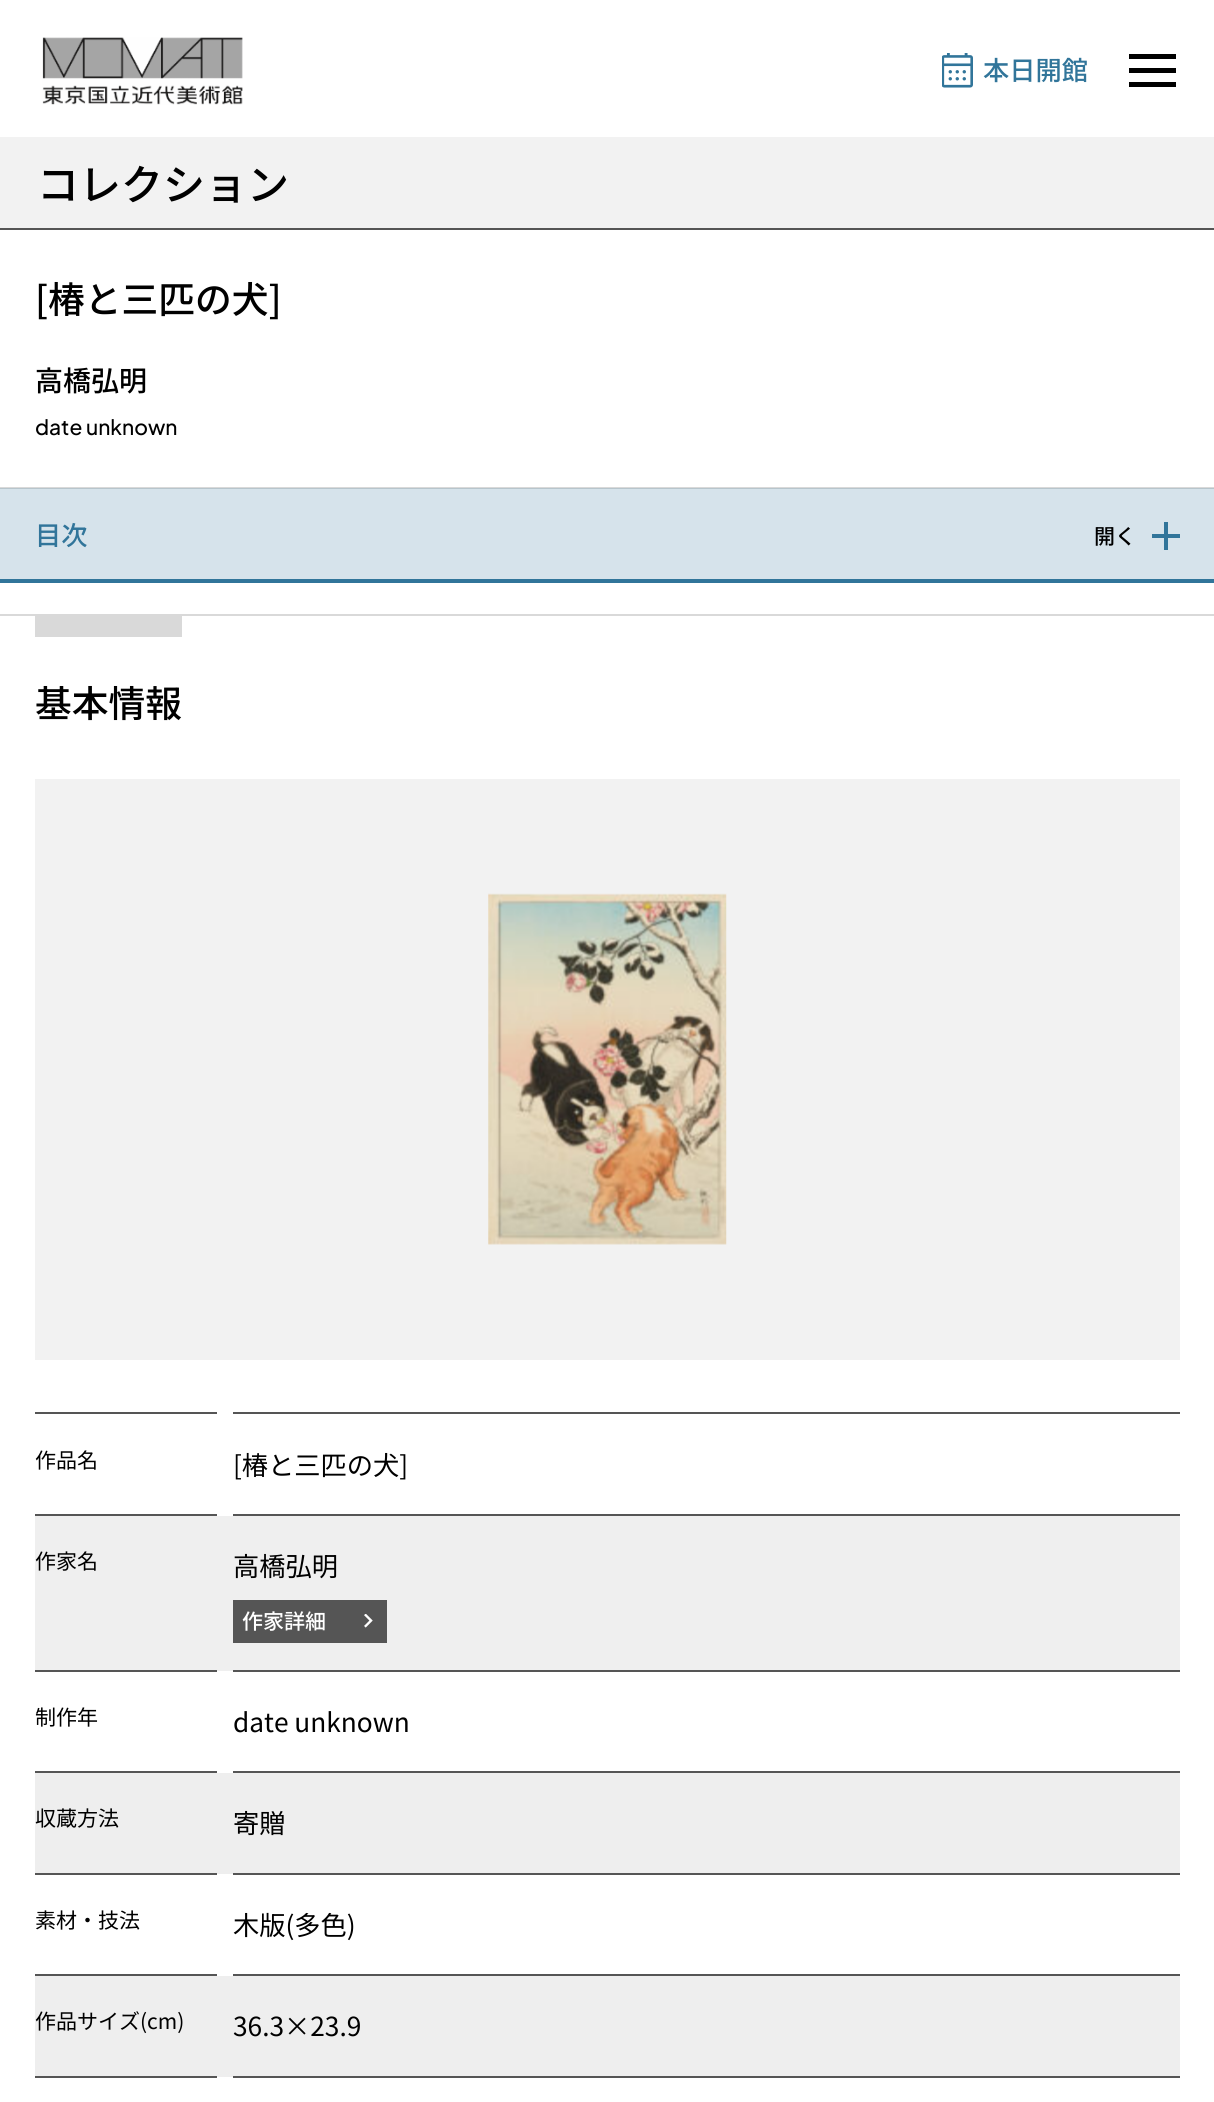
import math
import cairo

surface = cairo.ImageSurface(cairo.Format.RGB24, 1214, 2102)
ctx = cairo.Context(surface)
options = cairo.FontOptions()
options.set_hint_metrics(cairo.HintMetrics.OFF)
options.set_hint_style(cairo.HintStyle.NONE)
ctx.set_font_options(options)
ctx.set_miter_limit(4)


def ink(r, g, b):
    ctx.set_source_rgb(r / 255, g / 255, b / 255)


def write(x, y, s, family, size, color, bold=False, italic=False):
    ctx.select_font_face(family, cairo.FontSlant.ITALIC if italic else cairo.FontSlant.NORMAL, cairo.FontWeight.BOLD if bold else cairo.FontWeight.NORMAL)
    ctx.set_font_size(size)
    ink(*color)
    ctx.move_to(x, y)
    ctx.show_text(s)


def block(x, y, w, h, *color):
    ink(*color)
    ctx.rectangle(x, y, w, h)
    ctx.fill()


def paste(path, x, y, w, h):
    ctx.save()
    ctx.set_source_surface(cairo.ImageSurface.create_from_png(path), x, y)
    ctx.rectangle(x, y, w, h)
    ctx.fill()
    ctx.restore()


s1 = dict(family="Noto Sans JP Medium", size=26.25, color=(49, 117, 154))
s2 = dict(family="Noto Sans JP Medium", size=42, color=(0, 0, 0))
s3 = dict(family="Noto Sans JP Medium", size=36.75, color=(0, 0, 0))
s4 = dict(family="Noto Sans JP Medium", size=28, color=(0, 0, 0))
s5 = dict(family="Plus Jakarta Sans Medium", size=21, color=(0, 0, 0))
s6 = dict(family="Noto Sans JP Medium", size=21, color=(0, 0, 0))
s7 = dict(family="Noto Sans JP", size=21, color=(0, 0, 0))
s8 = dict(family="Noto Sans JP", size=26.25, color=(0, 0, 0))
s9 = dict(family="Noto Sans JP Medium", size=21, color=(255, 255, 255))

ink(255, 255, 255)
ctx.paint()
paste("pic1.png", 42, 37, 201, 68)
paste("pic2.png", 942, 53, 31, 35)
write(983, 80, "本日開館", **s1)
block(1129, 54, 47, 5, 0, 0, 0)
block(1129, 68, 47, 5, 0, 0, 0)
block(1129, 82, 47, 5, 0, 0, 0)
block(0, 489, 1214, 90, 214, 227, 235)
block(0, 137, 1214, 91, 242, 242, 242)
block(0, 228, 1214, 2, 85, 85, 85)
write(37, 200, "コレクション", **s2)
block(0, 487, 1214, 1, 217, 217, 217)
block(0, 488, 1214, 1, 183, 197, 204)
write(35, 313, "[椿と三匹の犬]", **s3)
write(35, 391, "高橋弘明", **s4)
write(35, 435, "date unknown", **s5)
write(35, 545, "目次", **s1)
write(1094, 544, "開く", **s6)
block(1152, 534, 28, 4, 49, 117, 154)
block(1164, 522, 4, 28, 49, 117, 154)
block(0, 579, 1214, 4, 49, 117, 154)
block(0, 614, 1214, 2, 217, 217, 217)
block(35, 616, 147, 21, 217, 217, 217)
write(35, 717, "基本情報", **s3)
block(35, 779, 1145, 581, 242, 242, 242)
paste("pic3.png", 488, 893, 239, 352)
block(35, 1412, 182, 2, 85, 85, 85)
block(35, 1514, 182, 2, 85, 85, 85)
write(35, 1468, "作品名", **s7)
block(233, 1412, 947, 2, 85, 85, 85)
block(233, 1514, 947, 2, 85, 85, 85)
write(233, 1475, "[椿と三匹の犬]", **s8)
block(35, 1516, 1145, 155, 239, 239, 239)
block(35, 1670, 182, 2, 85, 85, 85)
write(35, 1569, "作家名", **s7)
block(233, 1670, 947, 2, 85, 85, 85)
write(233, 1576, "高橋弘明", **s8)
block(233, 1600, 154, 43, 85, 85, 85)
paste("pic4.png", 364, 1614, 9, 14)
write(242, 1629, "作家詳細", **s9)
block(35, 1771, 182, 2, 85, 85, 85)
write(35, 1725, "制作年", **s7)
block(233, 1771, 947, 2, 85, 85, 85)
write(233, 1732, "date unknown", **s8)
block(35, 1773, 1145, 101, 238, 238, 238)
block(35, 1873, 182, 2, 85, 85, 85)
write(35, 1826, "収蔵方法", **s7)
block(233, 1873, 947, 2, 85, 85, 85)
write(233, 1833, "寄贈", **s8)
block(35, 1974, 182, 2, 85, 85, 85)
write(35, 1928, "素材・技法", **s7)
block(233, 1974, 947, 2, 85, 85, 85)
write(233, 1935, "木版(多色)", **s8)
block(35, 1976, 1145, 101, 238, 238, 238)
block(35, 2076, 182, 2, 85, 85, 85)
write(35, 2029, "作品サイズ(cm)", **s7)
block(233, 2076, 947, 2, 85, 85, 85)
write(233, 2036, "36.3×23.9", **s8)
surface.write_to_png("screenshot.png")
